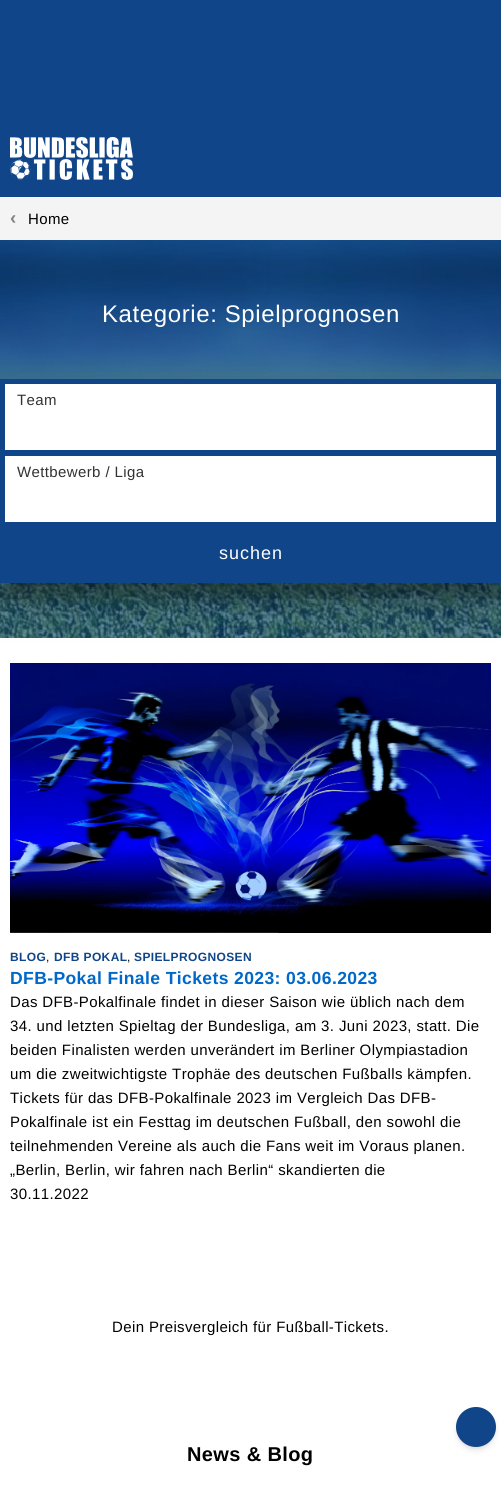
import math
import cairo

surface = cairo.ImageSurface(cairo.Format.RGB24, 501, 1497)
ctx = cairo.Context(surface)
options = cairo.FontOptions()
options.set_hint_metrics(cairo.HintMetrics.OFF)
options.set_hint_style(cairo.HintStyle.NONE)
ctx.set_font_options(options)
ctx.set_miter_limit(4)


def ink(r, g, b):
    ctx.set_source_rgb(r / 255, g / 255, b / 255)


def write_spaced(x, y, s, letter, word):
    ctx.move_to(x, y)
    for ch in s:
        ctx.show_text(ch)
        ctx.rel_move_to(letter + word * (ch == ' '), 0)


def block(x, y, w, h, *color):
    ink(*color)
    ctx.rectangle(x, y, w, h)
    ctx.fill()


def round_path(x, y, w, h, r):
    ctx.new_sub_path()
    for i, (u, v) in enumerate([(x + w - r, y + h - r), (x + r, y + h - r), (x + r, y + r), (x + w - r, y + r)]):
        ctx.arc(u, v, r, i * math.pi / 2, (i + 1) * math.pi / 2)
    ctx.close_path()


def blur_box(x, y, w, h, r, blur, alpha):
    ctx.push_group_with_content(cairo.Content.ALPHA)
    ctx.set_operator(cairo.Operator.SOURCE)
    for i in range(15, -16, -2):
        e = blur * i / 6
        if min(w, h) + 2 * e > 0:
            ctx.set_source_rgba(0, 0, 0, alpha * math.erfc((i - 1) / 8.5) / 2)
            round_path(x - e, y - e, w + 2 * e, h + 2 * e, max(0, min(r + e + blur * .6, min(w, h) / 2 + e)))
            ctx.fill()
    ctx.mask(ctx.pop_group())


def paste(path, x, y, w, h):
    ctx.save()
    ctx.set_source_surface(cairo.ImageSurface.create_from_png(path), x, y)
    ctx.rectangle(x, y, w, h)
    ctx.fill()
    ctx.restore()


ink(255, 255, 255)
ctx.paint()
block(0, 0, 501, 197, 16, 70, 137)
paste("pic1.png", 10, 137, 123, 43)
block(0, 197, 501, 43, 244, 244, 244)
ctx.select_font_face("Liberation Sans", cairo.FontSlant.NORMAL, cairo.FontWeight.BOLD)
ctx.set_font_size(19)
ink(132, 132, 132)
write_spaced(10, 224, "‹", 0.38, 0)
ctx.select_font_face("Liberation Sans")
ctx.set_font_size(15)
ink(0, 0, 0)
write_spaced(28, 224, "Home", 0.38, 0)
paste("pic2.png", 0, 240, 501, 398)
ctx.set_font_size(24)
ink(255, 255, 255)
write_spaced(102, 322, "Kategorie: Spielprognosen", 0.6, 0)
ink(0, 0, 0)
blur_box(0, 394, 501, 204, 0, 6, 0.22)
blur_box(0, 398, 501, 204, 0, 19, 0.3)
block(0, 379, 501, 204, 16, 70, 137)
block(5, 384, 491, 66, 255, 255, 255)
ctx.set_font_size(15)
ink(51, 51, 51)
write_spaced(17, 405, "Team", 0.38, 0)
block(5, 456, 491, 66, 255, 255, 255)
ink(51, 51, 51)
write_spaced(17, 477, "Wettbewerb / Liga", 0.38, 0)
ctx.set_font_size(18)
ink(255, 255, 255)
write_spaced(219, 559, "suchen", 1, 0)
paste("pic3.png", 10, 663, 481, 270)
ctx.select_font_face("Liberation Sans", cairo.FontSlant.NORMAL, cairo.FontWeight.BOLD)
ctx.set_font_size(12)
ink(16, 70, 137)
write_spaced(10, 961, "BLOG", 0.38, 0)
ctx.select_font_face("Liberation Sans")
ink(0, 0, 0)
write_spaced(46, 961, ",", 0.38, 0)
ctx.select_font_face("Liberation Sans", cairo.FontSlant.NORMAL, cairo.FontWeight.BOLD)
ink(16, 70, 137)
write_spaced(54, 961, "DFB POKAL", 0.38, 0)
ctx.select_font_face("Liberation Sans")
ink(0, 0, 0)
write_spaced(127, 961, ",", 0.38, 0)
ctx.select_font_face("Liberation Sans", cairo.FontSlant.NORMAL, cairo.FontWeight.BOLD)
ink(16, 70, 137)
write_spaced(134, 961, "SPIELPROGNOSEN", 0.38, 0)
ctx.set_font_size(17.55)
ink(0, 104, 200)
write_spaced(10, 984, "DFB-Pokal Finale Tickets 2023: 03.06.2023", 0.38, 0)
ctx.select_font_face("Liberation Sans")
ctx.set_font_size(15)
ink(0, 0, 0)
write_spaced(10, 1007, "Das DFB-Pokalfinale findet in dieser Saison wie üblich nach dem", 0.38, 0)
write_spaced(10, 1031, "34. und letzten Spieltag der Bundesliga, am 3. Juni 2023, statt. Die", 0.38, 0)
write_spaced(10, 1055, "beiden Finalisten werden unverändert im Berliner Olympiastadion", 0.38, 0)
write_spaced(10, 1079, "um die zweitwichtigste Trophäe des deutschen Fußballs kämpfen.", 0.38, 0)
write_spaced(10, 1103, "Tickets für das DFB-Pokalfinale 2023 im Vergleich Das DFB-", 0.38, 0)
write_spaced(10, 1127, "Pokalfinale ist ein Festtag im deutschen Fußball, den sowohl die", 0.38, 0)
write_spaced(10, 1151, "teilnehmenden Vereine als auch die Fans weit im Voraus planen.", 0.38, 0)
write_spaced(10, 1175, "„Berlin, Berlin, wir fahren nach Berlin“ skandierten die", 0.38, 0)
write_spaced(10, 1199, "30.11.2022", 0.38, 0)
write_spaced(112, 1332, "Dein Preisvergleich für Fußball-Tickets.", 0.38, 0)
ctx.select_font_face("Liberation Sans", cairo.FontSlant.NORMAL, cairo.FontWeight.BOLD)
ctx.set_font_size(20)
write_spaced(187, 1461, "News & Blog", 0.38, 0)
ink(0, 0, 0)
blur_box(458, 1411, 36, 36, 18, 2, 0.1)
blur_box(457, 1412, 38, 38, 19, 3, 0.1)
ink(16, 70, 137)
ctx.arc(476, 1427, 20, 0, 2 * math.pi)
ctx.fill()
surface.write_to_png("screenshot.png")
